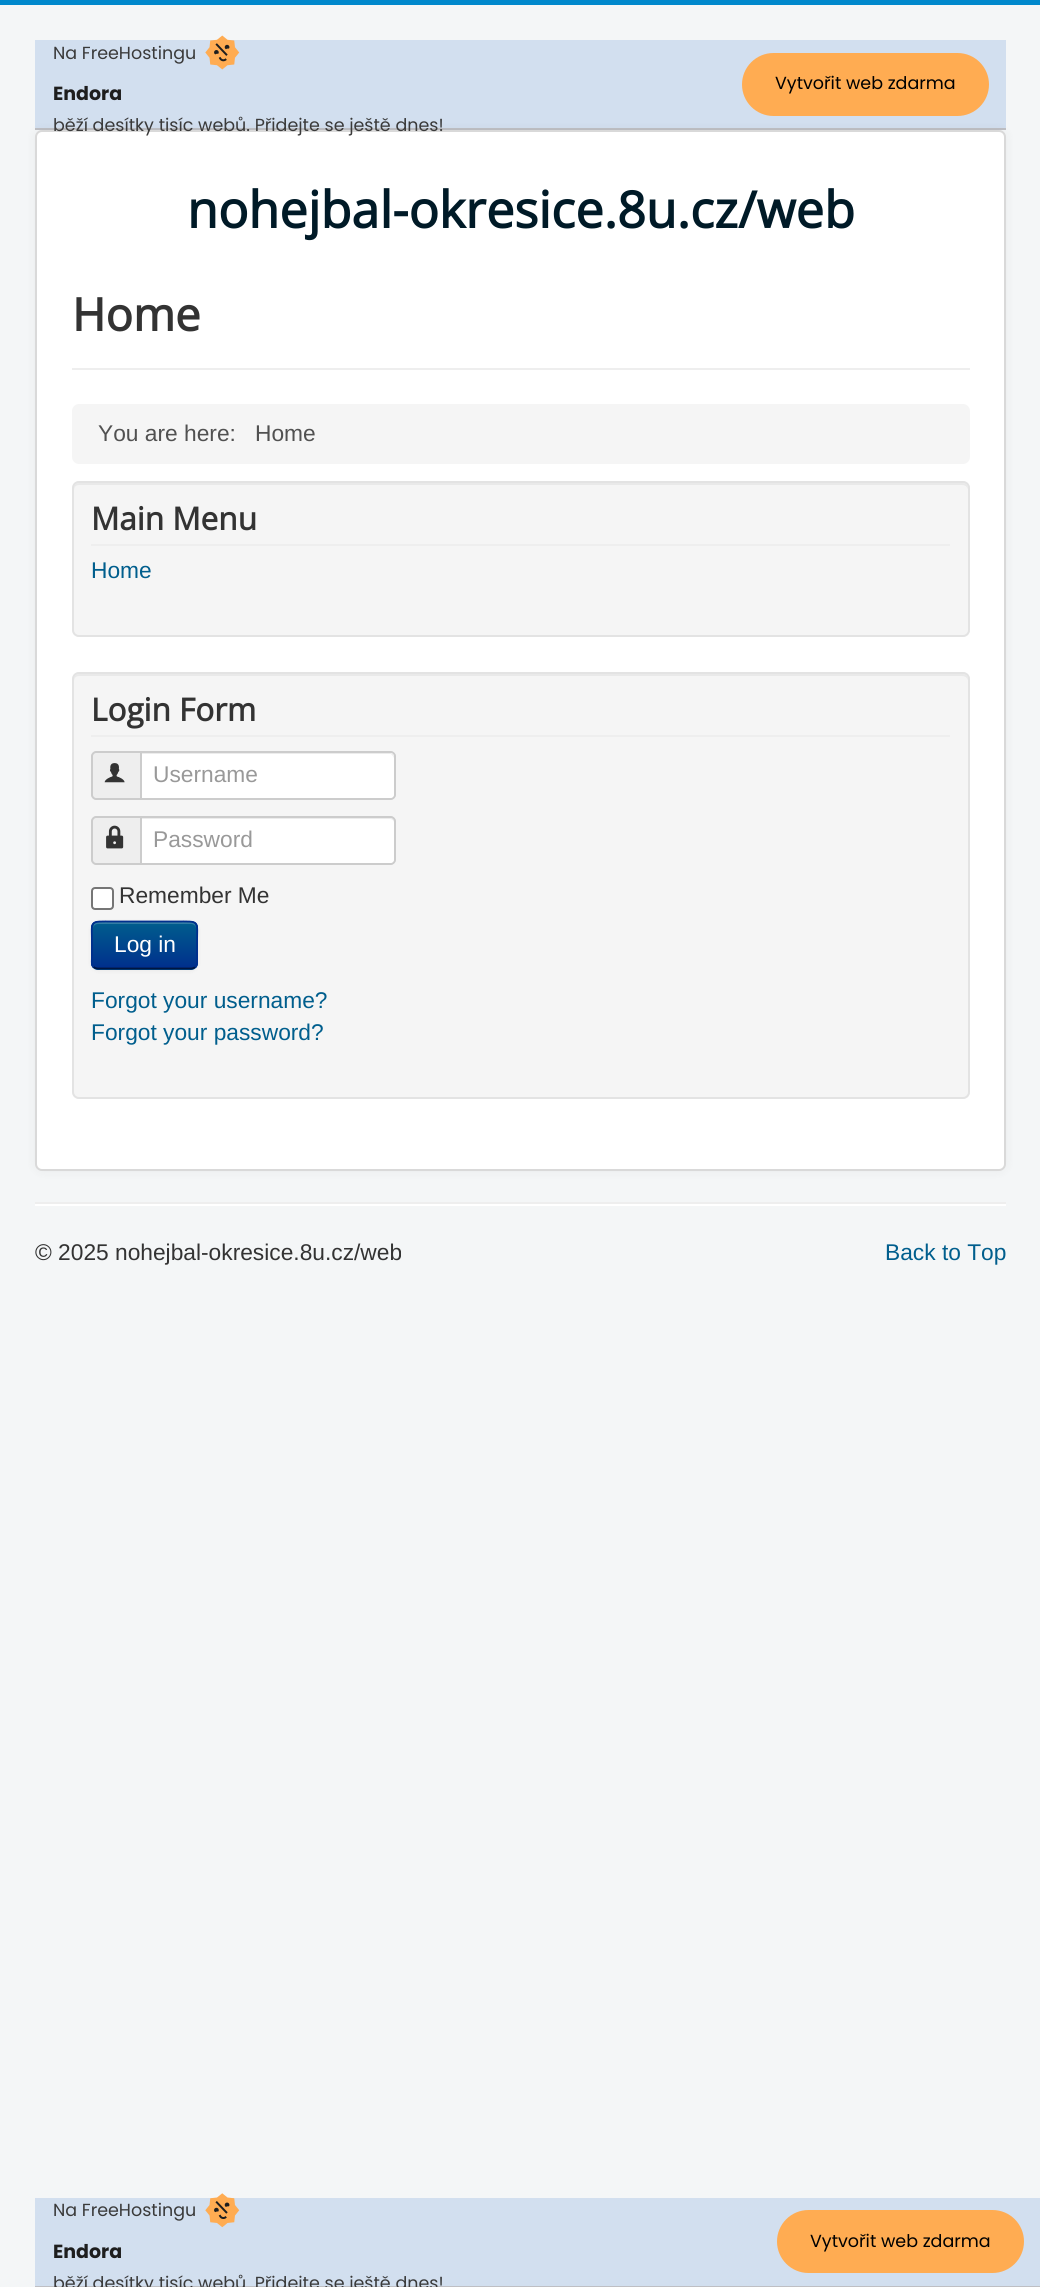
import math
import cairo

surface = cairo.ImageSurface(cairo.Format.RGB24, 1040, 2287)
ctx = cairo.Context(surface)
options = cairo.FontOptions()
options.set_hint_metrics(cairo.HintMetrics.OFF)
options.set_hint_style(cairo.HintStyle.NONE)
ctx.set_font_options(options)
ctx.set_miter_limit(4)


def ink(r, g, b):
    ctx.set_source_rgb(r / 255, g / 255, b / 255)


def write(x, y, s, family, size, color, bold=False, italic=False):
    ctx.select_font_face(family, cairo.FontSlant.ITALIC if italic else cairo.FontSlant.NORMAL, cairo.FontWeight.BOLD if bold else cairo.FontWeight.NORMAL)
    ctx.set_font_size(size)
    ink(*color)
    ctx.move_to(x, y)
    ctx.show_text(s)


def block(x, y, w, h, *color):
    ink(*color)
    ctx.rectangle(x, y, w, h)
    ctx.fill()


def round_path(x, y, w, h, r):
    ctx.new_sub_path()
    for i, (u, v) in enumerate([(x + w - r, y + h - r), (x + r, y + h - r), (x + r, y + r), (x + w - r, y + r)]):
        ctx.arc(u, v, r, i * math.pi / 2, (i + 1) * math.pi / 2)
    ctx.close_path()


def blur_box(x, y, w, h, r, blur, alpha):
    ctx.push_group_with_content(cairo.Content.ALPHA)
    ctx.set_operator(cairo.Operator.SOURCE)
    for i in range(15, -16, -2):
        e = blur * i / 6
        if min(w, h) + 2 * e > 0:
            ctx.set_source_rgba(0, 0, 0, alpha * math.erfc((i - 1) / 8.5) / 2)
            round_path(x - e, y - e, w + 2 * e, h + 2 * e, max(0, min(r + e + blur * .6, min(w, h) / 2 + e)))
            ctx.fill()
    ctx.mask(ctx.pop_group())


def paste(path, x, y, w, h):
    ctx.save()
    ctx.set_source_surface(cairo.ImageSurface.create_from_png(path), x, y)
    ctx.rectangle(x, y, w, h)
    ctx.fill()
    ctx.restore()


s1 = dict(family="Poppins", size=17.5, color=(58, 58, 58))
s2 = dict(family="Poppins", size=19, color=(30, 30, 30), bold=True)
s3 = dict(family="Poppins", size=17.5, color=(0, 0, 0))
s4 = dict(family="Open Sans", size=50.5, color=(0, 26, 39), bold=True)
s5 = dict(family="Open Sans", size=45.5, color=(51, 51, 51), bold=True)
s6 = dict(family="Liberation Sans", size=22.75, color=(81, 81, 81))
s7 = dict(family="Open Sans", size=31.5, color=(51, 51, 51), bold=True)
s8 = dict(family="Liberation Sans", size=22.75, color=(0, 94, 141))
s9 = dict(family="Liberation Sans", size=22.75, color=(153, 153, 153))
s10 = dict(family="Liberation Sans", size=22.75, color=(51, 51, 51))
s11 = dict(family="Liberation Sans", size=22.75, color=(255, 255, 255))

ink(244, 246, 247)
ctx.paint()
block(0, 0, 1040, 5, 0, 136, 204)
block(35, 40, 971, 88, 210, 223, 239)
block(35, 128, 971, 2, 190, 191, 196)
write(53, 59, "Na FreeHostingu", **s1)
paste("pic1.png", 205, 35, 35, 35)
write(53, 100, "Endora", **s2)
ink(0, 0, 0)
blur_box(35, 130, 971, 1041, 7, 5, 0.05)
ink(255, 255, 255)
round_path(35, 130, 971, 1041, 7)
ctx.fill()
round_path(36, 131, 969, 1039, 6)
ctx.set_source_rgba(0, 0, 0, 0.15)
ctx.stroke()
write(53, 131, "běží desítky tisíc webů. Přidejte se ještě dnes!", **s1)
ink(255, 172, 82)
round_path(742, 53, 247, 63, 31.5)
ctx.fill()
write(775, 89, "Vytvořit web zdarma", **s3)
write(187, 228, "nohejbal-okresice.8u.cz/web", **s4)
block(72, 368, 898, 2, 238, 238, 238)
write(72, 331, "Home", **s5)
ink(245, 245, 245)
round_path(72, 404, 898, 60, 7)
ctx.fill()
write(98, 441, "You are here:", **s6)
write(255, 441, "Home", **s6)
ink(245, 245, 245)
round_path(72, 481, 898, 156, 7)
ctx.fill()
ink(233, 233, 233)
ctx.new_path()
ctx.move_to(79, 485)
ctx.line_to(962, 485)
ctx.curve_to(965, 485, 968, 487, 968, 490)
ctx.line_to(968, 488)
ctx.curve_to(968, 485, 966, 483, 963, 483)
ctx.line_to(79, 483)
ctx.curve_to(76, 483, 74, 485, 74, 488)
ctx.line_to(74, 490)
ctx.curve_to(74, 487, 76, 485, 79, 485)
ctx.close_path()
ctx.fill()
round_path(73, 482, 896, 154, 6)
ink(227, 227, 227)
ctx.stroke()
block(91, 544, 859, 2, 238, 238, 238)
write(91, 530, "Main Menu", **s7)
write(91, 578, "Home", **s8)
ink(245, 245, 245)
round_path(72, 672, 898, 427, 7)
ctx.fill()
ink(233, 233, 233)
ctx.new_path()
ctx.move_to(79, 676)
ctx.line_to(962, 676)
ctx.curve_to(965, 676, 968, 678, 968, 681)
ctx.line_to(968, 679)
ctx.curve_to(968, 676, 966, 674, 963, 674)
ctx.line_to(79, 674)
ctx.curve_to(76, 674, 74, 676, 74, 679)
ctx.line_to(74, 681)
ctx.curve_to(74, 678, 76, 676, 79, 676)
ctx.close_path()
ctx.fill()
round_path(73, 673, 896, 425, 6)
ink(227, 227, 227)
ctx.stroke()
block(91, 735, 859, 2, 238, 238, 238)
write(91, 721, "Login Form", **s7)
ink(238, 238, 238)
ctx.new_path()
ctx.move_to(96, 752)
ctx.line_to(141, 752)
ctx.line_to(141, 799)
ctx.line_to(96, 799)
ctx.curve_to(94, 799, 92, 797, 92, 795)
ctx.line_to(92, 756)
ctx.curve_to(92, 754, 94, 752, 96, 752)
ctx.close_path()
ctx.fill_preserve()
ink(204, 204, 204)
ctx.stroke()
paste("pic2.png", 104, 763, 21, 20)
ink(255, 255, 255)
ctx.new_path()
ctx.move_to(140, 751)
ctx.line_to(391, 751)
ctx.curve_to(394, 751, 396, 753, 396, 756)
ctx.line_to(396, 795)
ctx.curve_to(396, 798, 394, 800, 391, 800)
ctx.line_to(140, 800)
ctx.close_path()
ctx.fill()
ink(236, 236, 236)
ctx.new_path()
ctx.move_to(142, 754)
ctx.line_to(391, 754)
ctx.line_to(393, 756)
ctx.line_to(394, 758)
ctx.line_to(394, 757)
ctx.curve_to(394, 755, 392, 753, 390, 753)
ctx.line_to(142, 753)
ctx.close_path()
ctx.fill()
ctx.new_path()
ctx.move_to(141, 752)
ctx.line_to(391, 752)
ctx.curve_to(393, 752, 395, 754, 395, 756)
ctx.line_to(395, 795)
ctx.curve_to(395, 797, 393, 799, 391, 799)
ctx.line_to(141, 799)
ctx.close_path()
ink(204, 204, 204)
ctx.stroke()
write(153, 782, "Username", **s9)
ink(238, 238, 238)
ctx.new_path()
ctx.move_to(96, 817)
ctx.line_to(141, 817)
ctx.line_to(141, 864)
ctx.line_to(96, 864)
ctx.curve_to(94, 864, 92, 862, 92, 860)
ctx.line_to(92, 821)
ctx.curve_to(92, 819, 94, 817, 96, 817)
ctx.close_path()
ctx.fill_preserve()
ink(204, 204, 204)
ctx.stroke()
paste("pic3.png", 106, 825, 18, 24)
ink(255, 255, 255)
ctx.new_path()
ctx.move_to(140, 816)
ctx.line_to(391, 816)
ctx.curve_to(394, 816, 396, 818, 396, 821)
ctx.line_to(396, 860)
ctx.curve_to(396, 863, 394, 865, 391, 865)
ctx.line_to(140, 865)
ctx.close_path()
ctx.fill()
ink(236, 236, 236)
ctx.new_path()
ctx.move_to(142, 819)
ctx.line_to(390, 819)
ctx.curve_to(392, 819, 394, 821, 394, 822)
ctx.line_to(394, 821)
ctx.curve_to(394, 819, 392, 817, 390, 817)
ctx.line_to(142, 817)
ctx.close_path()
ctx.fill()
ctx.new_path()
ctx.move_to(141, 817)
ctx.line_to(391, 817)
ctx.curve_to(393, 817, 395, 819, 395, 821)
ctx.line_to(395, 860)
ctx.curve_to(395, 862, 393, 864, 391, 864)
ctx.line_to(141, 864)
ctx.close_path()
ink(204, 204, 204)
ctx.stroke()
write(153, 847, "Password", **s9)
ink(255, 255, 255)
round_path(92, 888, 21, 21, 3)
ctx.fill_preserve()
ink(118, 118, 118)
ctx.stroke()
write(119, 903, "Remember Me", **s10)
ink(0, 0, 0)
blur_box(91, 922, 107, 49, 7, 2, 0.05)
ink(0, 75, 141)
round_path(91, 921, 107, 49, 7)
ctx.fill()
ctx.save()
round_path(91, 921, 107, 49, 7)
ctx.clip()
gradient = cairo.LinearGradient(144, 922, 144, 968)
gradient.add_color_stop_rgba(0, 0, 0.369, 0.553, 1)
gradient.add_color_stop_rgba(1, 0, 0.184, 0.553, 1)
ctx.set_source(gradient)
ctx.rectangle(91, 922, 107, 46)
ctx.fill()
ctx.restore()
ctx.set_source_rgba(1, 1, 1, 0.2)
ctx.new_path()
ctx.move_to(98, 924)
ctx.line_to(191, 924)
ctx.curve_to(194, 924, 196, 926, 196, 929)
ctx.curve_to(196, 918, 184, 922, 176, 922)
ctx.line_to(114, 922)
ctx.curve_to(105, 922, 93, 918, 93, 929)
ctx.curve_to(93, 926, 95, 924, 98, 924)
ctx.close_path()
ctx.fill()
ctx.new_path()
ctx.move_to(195, 967)
ctx.curve_to(194, 968, 192.5, 968.5, 191, 968.5)
ctx.line_to(98, 968.5)
ctx.curve_to(96.5, 968.5, 95, 968, 93.5, 967)
ink(0, 22, 65)
ctx.set_line_width(1.8)
ctx.stroke()
ctx.new_path()
ctx.move_to(93.5, 967)
ctx.curve_to(91, 964, 92, 960, 92, 956.5)
ctx.line_to(92, 945)
ctx.curve_to(92, 919.5, 88, 921.5, 113.5, 921.5)
ctx.line_to(175.5, 921.5)
ctx.curve_to(201, 921.5, 197, 919.5, 197, 945)
ctx.line_to(197, 956.5)
ctx.curve_to(197, 960, 197.5, 964, 195, 967)
ink(0, 47, 141)
ctx.stroke()
write(114, 952, "Log in", **s11)
write(91, 1008, "Forgot your username?", **s8)
write(91, 1040, "Forgot your password?", **s8)
block(35, 1202, 971, 2, 238, 238, 238)
block(35, 1204, 971, 2, 255, 255, 255)
write(35, 1260, "© 2025 nohejbal-okresice.8u.cz/web", **s10)
write(885, 1260, "Back to Top", **s8)
block(35, 2198, 1005, 88, 210, 223, 239)
block(35, 2286, 1005, 1, 190, 191, 196)
write(53, 2216, "Na FreeHostingu", **s1)
paste("pic4.png", 205, 2193, 35, 35)
write(53, 2258, "Endora", **s2)
write(53, 2289, "běží desítky tisíc webů. Přidejte se ještě dnes!", **s1)
ink(255, 172, 82)
round_path(777, 2210, 247, 63, 31.5)
ctx.fill()
write(810, 2247, "Vytvořit web zdarma", **s3)
surface.write_to_png("screenshot.png")
